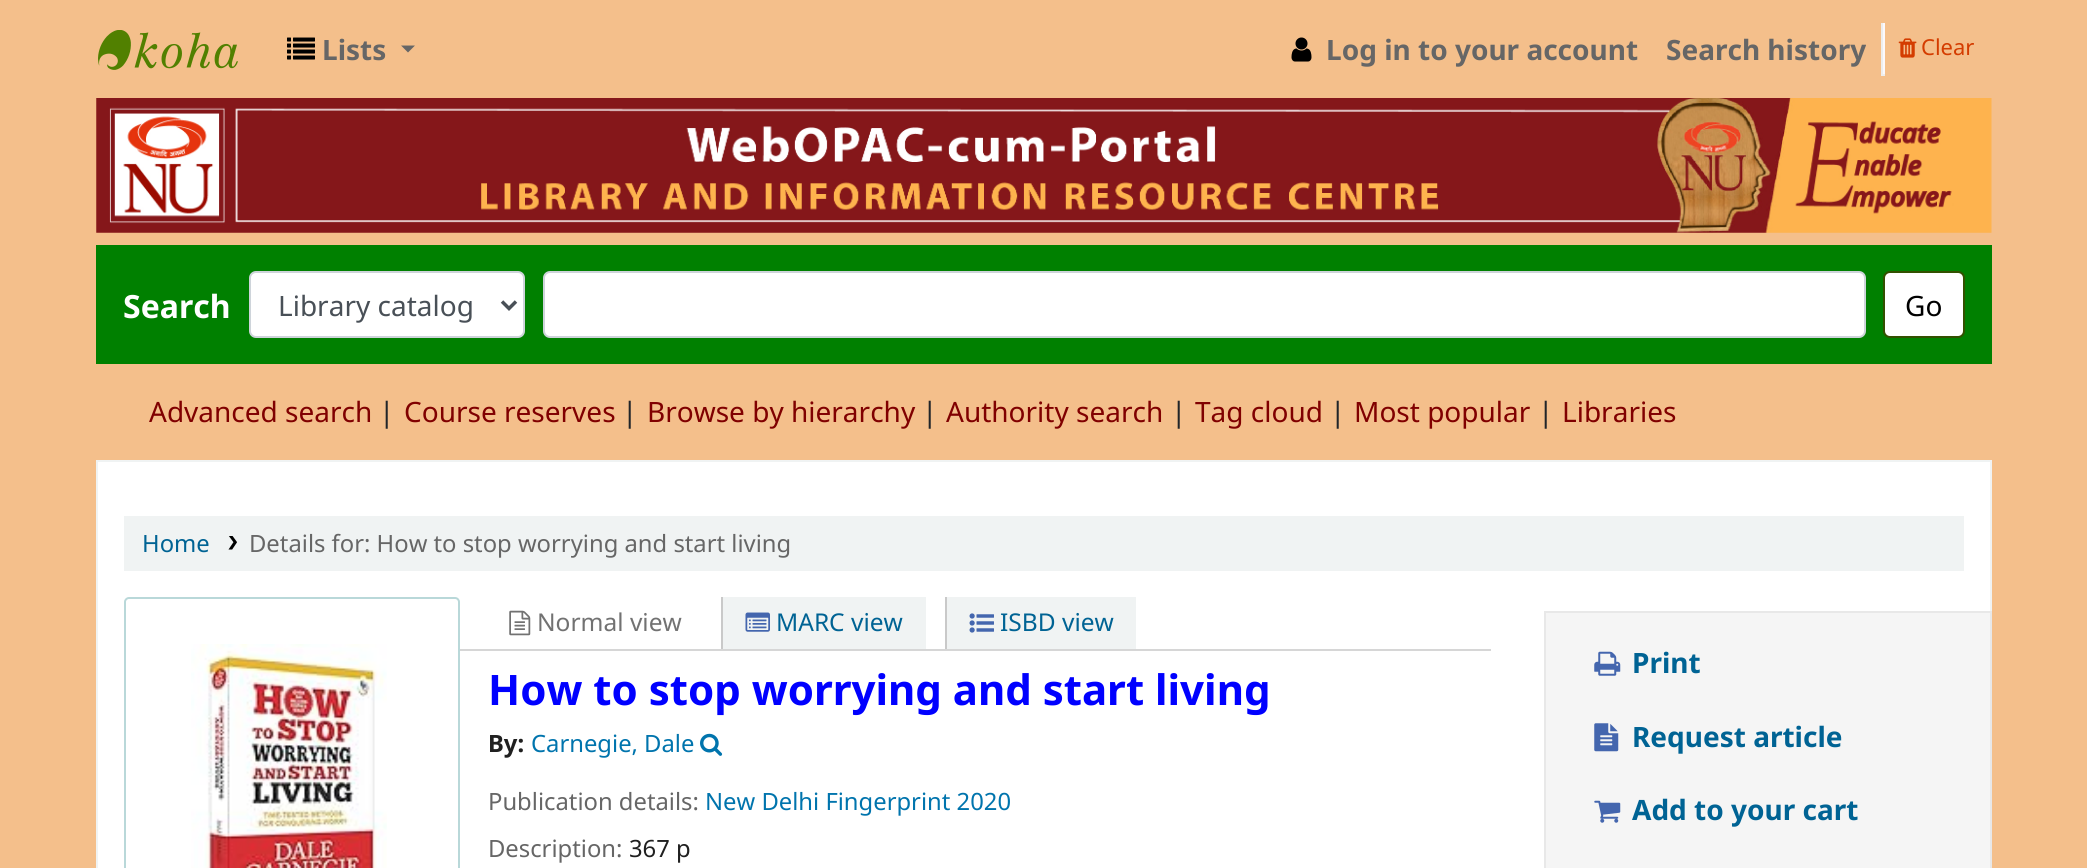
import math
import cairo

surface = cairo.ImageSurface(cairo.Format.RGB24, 2087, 868)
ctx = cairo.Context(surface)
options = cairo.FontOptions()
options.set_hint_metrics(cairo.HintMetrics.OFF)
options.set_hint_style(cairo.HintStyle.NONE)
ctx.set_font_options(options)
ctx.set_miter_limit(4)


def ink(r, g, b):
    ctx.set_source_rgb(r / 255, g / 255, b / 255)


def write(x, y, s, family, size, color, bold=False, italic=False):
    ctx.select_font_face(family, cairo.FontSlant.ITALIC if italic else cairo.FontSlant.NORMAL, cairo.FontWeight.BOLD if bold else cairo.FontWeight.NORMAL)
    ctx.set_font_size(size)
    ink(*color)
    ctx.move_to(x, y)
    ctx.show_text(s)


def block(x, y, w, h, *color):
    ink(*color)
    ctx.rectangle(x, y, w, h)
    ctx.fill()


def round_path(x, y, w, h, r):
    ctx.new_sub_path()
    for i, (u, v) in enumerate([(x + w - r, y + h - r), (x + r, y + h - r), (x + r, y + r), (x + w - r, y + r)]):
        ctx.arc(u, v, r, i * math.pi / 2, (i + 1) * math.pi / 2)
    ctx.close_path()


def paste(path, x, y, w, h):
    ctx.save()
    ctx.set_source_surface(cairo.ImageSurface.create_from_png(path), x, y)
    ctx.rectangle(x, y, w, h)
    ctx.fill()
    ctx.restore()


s1 = dict(family="Noto Sans", size=28, color=(102, 102, 102), bold=True)
s2 = dict(family="Noto Sans", size=22, color=(212, 60, 0))
s3 = dict(family="Noto Sans", size=32, color=(255, 255, 255), bold=True)
s4 = dict(family="Noto Sans", size=28, color=(73, 80, 87))
s5 = dict(family="Noto Sans", size=28, color=(0, 0, 0))
s6 = dict(family="Noto Sans", size=28, color=(128, 0, 0))
s7 = dict(family="Noto Sans", size=28, color=(33, 37, 41))
s8 = dict(family="Noto Sans", size=23.8, color=(0, 99, 148))
s9 = dict(family="Noto Sans", size=23.8, color=(102, 102, 102))
s10 = dict(family="Noto Sans", size=24.5, color=(114, 114, 114))
s11 = dict(family="Noto Sans", size=24.5, color=(0, 99, 148))
s12 = dict(family="Noto Sans", size=42, color=(0, 0, 255), bold=True)
s13 = dict(family="Noto Sans", size=23.8, color=(32, 32, 32), bold=True)
s14 = dict(family="Noto Sans", size=23.8, color=(0, 116, 173))
s15 = dict(family="Noto Sans", size=23.8, color=(32, 32, 32))
s16 = dict(family="Noto Sans", size=28, color=(0, 99, 148), bold=True)

ink(244, 191, 139)
ctx.paint()
paste("pic1.png", 98, 30, 140, 40)
paste("pic2.png", 287, 37, 28, 23)
write(322, 60, "Lists", **s1)
ctx.new_path()
ctx.move_to(401, 45.5)
ctx.line_to(415, 45.5)
ctx.line_to(408, 52.5)
ctx.close_path()
ctx.fill()
paste("pic3.png", 1291, 37, 21, 25)
write(1326, 60, "Log in to your account", **s1)
write(1666, 60, "Search history", **s1)
block(1883, 23, 2, 52, 252, 249, 252)
block(1881, 74, 4, 2, 238, 238, 238)
block(1881, 23, 2, 52, 238, 238, 238)
paste("pic4.png", 1898, 38, 19, 20)
write(1921, 55, "Clear", **s2)
paste("pic5.png", 96, 98, 1896, 135)
block(96, 245, 1896, 119, 0, 128, 0)
write(123, 318, "Search", **s3)
round_path(250, 272, 274, 65, 6)
ctx.fill_preserve()
ink(206, 212, 218)
ctx.stroke()
ctx.new_path()
ctx.move_to(502, 301.5)
ctx.line_to(509, 308.5)
ctx.line_to(516, 301.5)
ink(73, 80, 87)
ctx.set_line_width(3.5)
ctx.stroke()
write(278, 316, "Library catalog", **s4)
ink(255, 255, 255)
round_path(544, 272, 1321, 65, 6)
ctx.fill_preserve()
ink(206, 212, 218)
ctx.set_line_width(2)
ctx.stroke()
ink(255, 255, 255)
round_path(1884, 272, 80, 65, 6)
ctx.fill_preserve()
ink(51, 80, 0)
ctx.stroke()
write(1905, 316, "Go", **s5)
write(149, 422, "Advanced search", **s6)
write(379, 422, "|", **s7)
write(404, 422, "Course reserves", **s6)
write(622, 422, "|", **s7)
write(647, 422, "Browse by hierarchy", **s6)
write(922, 422, "|", **s7)
write(946, 422, "Authority search", **s6)
write(1171, 422, "|", **s7)
write(1195, 422, "Tag cloud", **s6)
write(1330, 422, "|", **s7)
write(1354, 422, "Most popular", **s6)
write(1538, 422, "|", **s7)
write(1562, 422, "Libraries", **s6)
ink(255, 255, 255)
ctx.rectangle(97, 461, 1894, 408)
ctx.fill_preserve()
ink(240, 243, 243)
ctx.stroke()
block(124, 516, 1840, 55, 240, 243, 243)
write(142, 552, "Home", **s8)
paste("pic6.png", 228, 536, 9, 14)
write(249, 552, "Details for: How to stop worrying and start living", **s9)
round_path(125, 598, 334, 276, 4)
ink(185, 216, 217)
ctx.stroke()
paste("pic7.png", 191, 644, 196, 224)
block(460, 649, 1031, 2, 214, 214, 214)
paste("pic8.png", 509, 610, 22, 26)
write(537, 631, "Normal view", **s10)
block(723, 597, 203, 52, 240, 243, 243)
block(721, 597, 2, 52, 201, 201, 201)
paste("pic9.png", 745, 612, 25, 20)
write(776, 631, "MARC view", **s11)
block(947, 597, 189, 52, 240, 243, 243)
block(945, 597, 2, 52, 201, 201, 201)
paste("pic10.png", 969, 613, 25, 20)
write(1000, 631, "ISBD view", **s11)
write(488, 705, "How to stop worrying and start living", **s12)
write(488, 752, "By:", **s13)
write(531, 752, "Carnegie, Dale", **s14)
paste("pic11.png", 700, 733, 23, 23)
write(488, 810, "Publication details:", **s9)
write(705, 810, "New Delhi Fingerprint 2020", **s14)
write(488, 857, "Description:", **s9)
write(629, 857, "367 p", **s15)
ink(245, 245, 245)
ctx.rectangle(1545, 612, 446, 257)
ctx.fill_preserve()
ink(232, 232, 232)
ctx.stroke()
paste("pic12.png", 1594, 651, 27, 25)
write(1632, 673, "Print", **s16)
paste("pic13.png", 1594, 723, 25, 29)
write(1632, 747, "Request article", **s16)
paste("pic14.png", 1594, 800, 27, 23)
write(1632, 820, "Add to your cart", **s16)
surface.write_to_png("screenshot.png")
